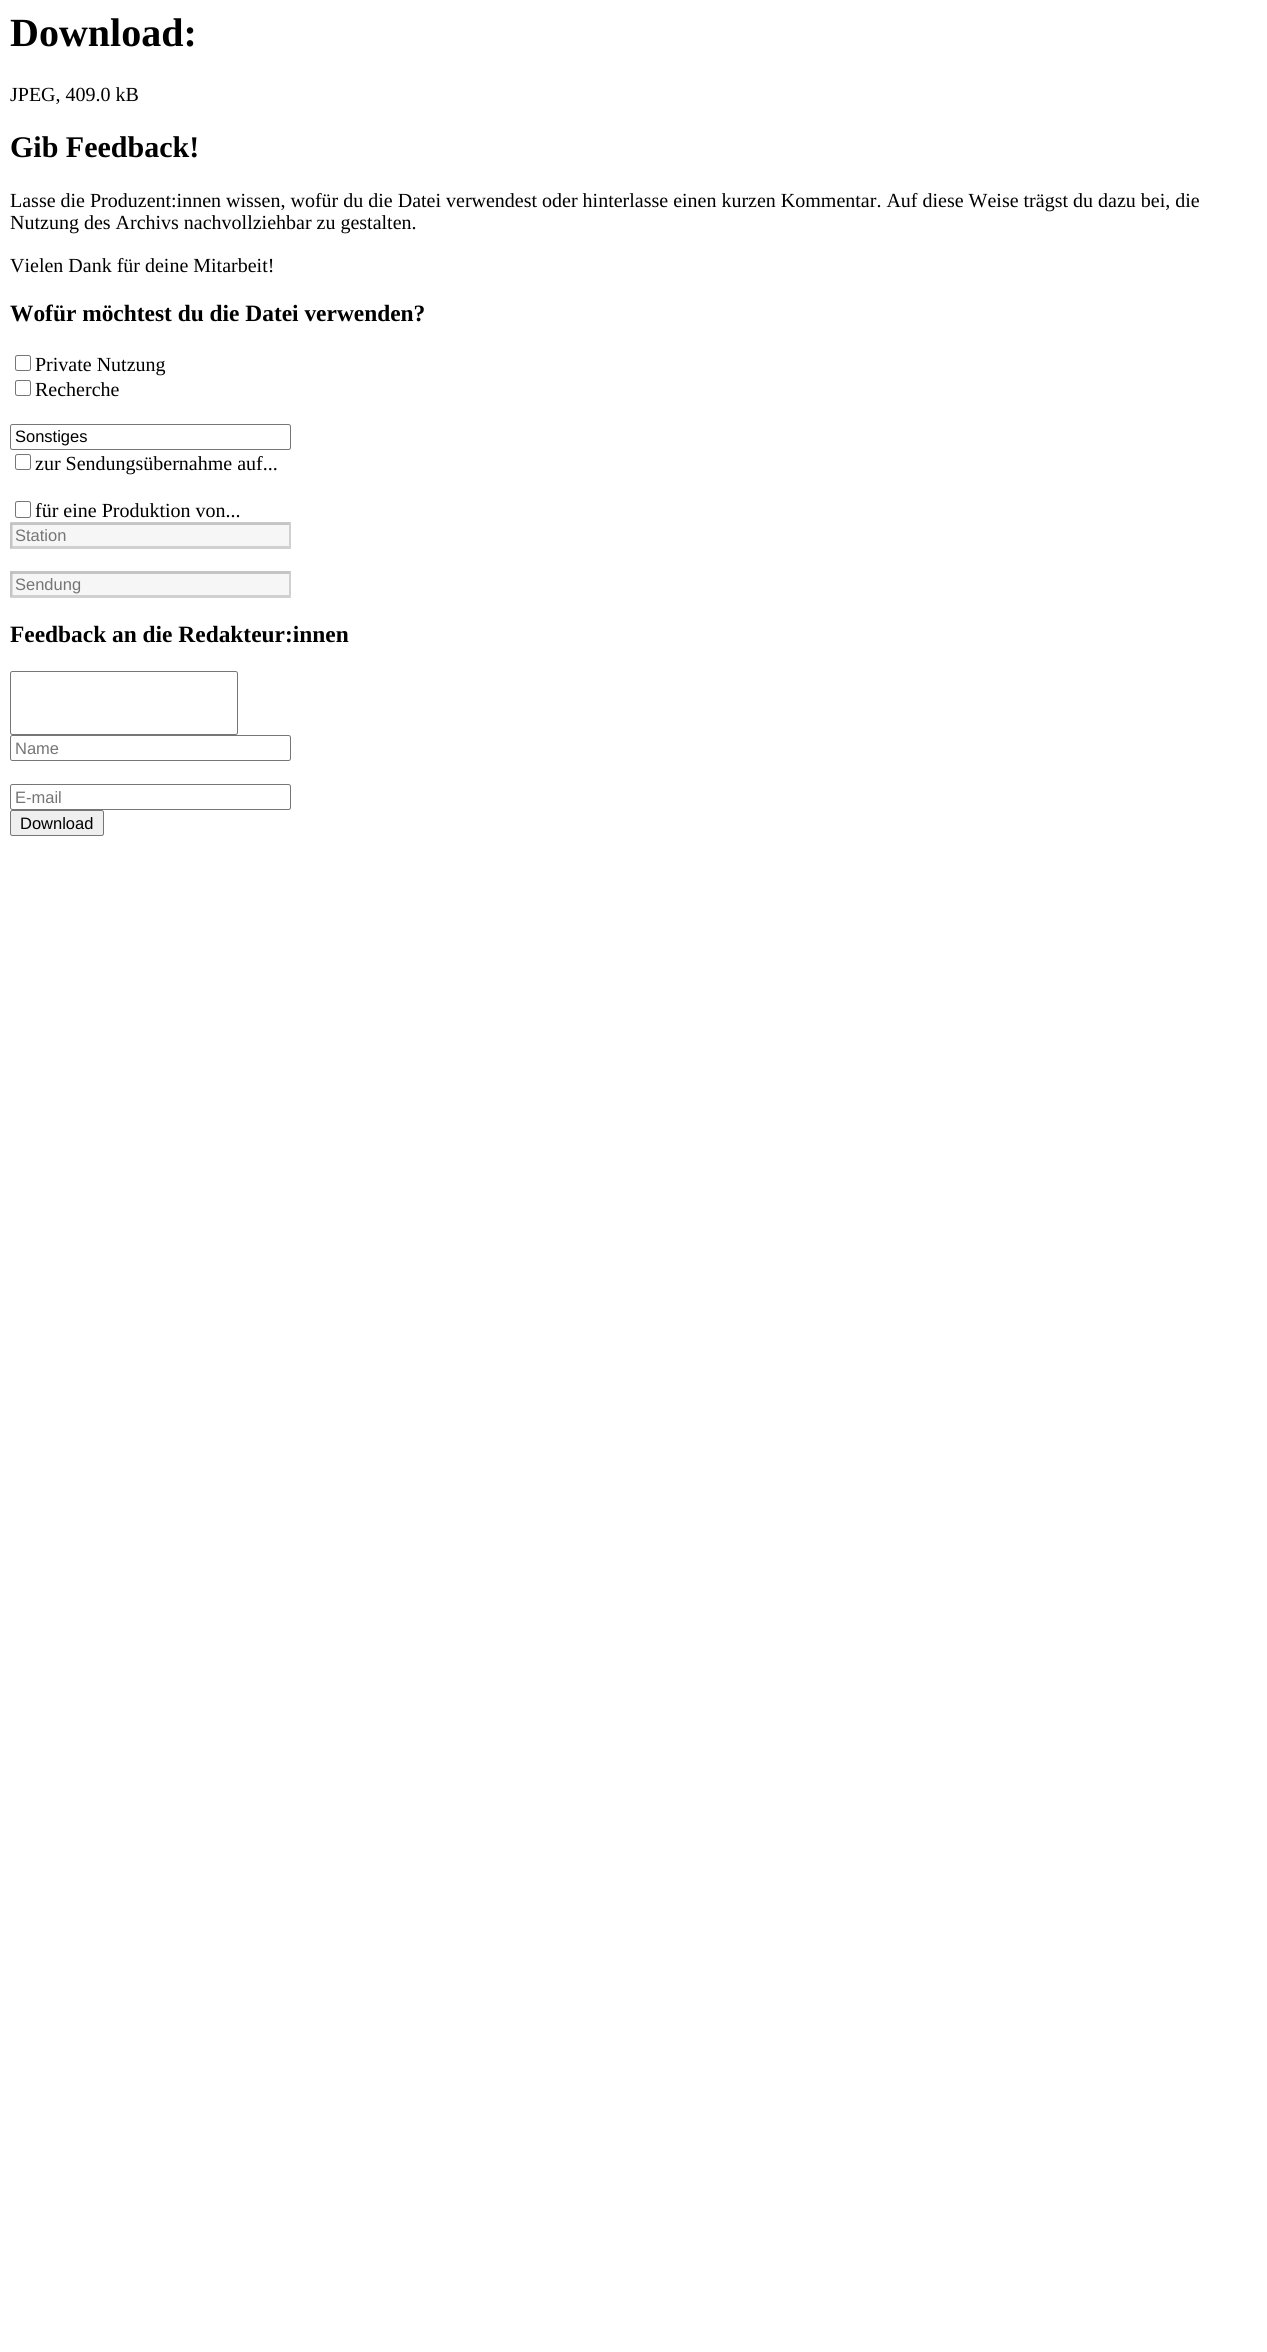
import math
import cairo

surface = cairo.ImageSurface(cairo.Format.RGB24, 1267, 2352)
ctx = cairo.Context(surface)
options = cairo.FontOptions()
options.set_hint_metrics(cairo.HintMetrics.OFF)
options.set_hint_style(cairo.HintStyle.NONE)
ctx.set_font_options(options)
ctx.set_miter_limit(4)


def ink(r, g, b):
    ctx.set_source_rgb(r / 255, g / 255, b / 255)


def write(x, y, s, family, size, color, bold=False, italic=False):
    ctx.select_font_face(family, cairo.FontSlant.ITALIC if italic else cairo.FontSlant.NORMAL, cairo.FontWeight.BOLD if bold else cairo.FontWeight.NORMAL)
    ctx.set_font_size(size)
    ink(*color)
    ctx.move_to(x, y)
    ctx.show_text(s)


def block(x, y, w, h, *color):
    ink(*color)
    ctx.rectangle(x, y, w, h)
    ctx.fill()


def round_path(x, y, w, h, r):
    ctx.new_sub_path()
    for i, (u, v) in enumerate([(x + w - r, y + h - r), (x + r, y + h - r), (x + r, y + r), (x + w - r, y + r)]):
        ctx.arc(u, v, r, i * math.pi / 2, (i + 1) * math.pi / 2)
    ctx.close_path()


s1 = dict(family="Liberation Serif", size=40, color=(0, 0, 0), bold=True)
s2 = dict(family="Liberation Serif", size=20, color=(0, 0, 0))
s3 = dict(family="Liberation Serif", size=30, color=(0, 0, 0), bold=True)
s4 = dict(family="Liberation Serif", size=23.4, color=(0, 0, 0), bold=True)
s5 = dict(family="Liberation Sans", size=16.5, color=(0, 0, 0))
s6 = dict(family="Liberation Sans", size=16.5, color=(117, 117, 117))

ink(255, 255, 255)
ctx.paint()
write(10, 46, "Download:", **s1)
write(10, 101, "JPEG, 409.0 kB", **s2)
write(10, 157, "Gib Feedback!", **s3)
write(10, 207, "Lasse die Produzent:innen wissen, wofür du die Datei verwendest oder hinterlasse einen kurzen Kommentar. Auf diese Weise trägst du dazu bei, die", **s2)
write(10, 229, "Nutzung des Archivs nachvollziehbar zu gestalten.", **s2)
write(10, 272, "Vielen Dank für deine Mitarbeit!", **s2)
write(10, 321, "Wofür möchtest du die Datei verwenden?", **s4)
round_path(15.5, 355.5, 15, 15, 2)
ink(118, 118, 118)
ctx.set_line_width(1)
ctx.stroke()
write(35, 371, "Private Nutzung", **s2)
round_path(15.5, 380.5, 15, 15, 2)
ink(118, 118, 118)
ctx.stroke()
write(35, 396, "Recherche", **s2)
round_path(10.5, 424.5, 280, 25, 2)
ink(118, 118, 118)
ctx.stroke()
write(15, 442, "Sonstiges", **s5)
round_path(15.5, 454.5, 15, 15, 2)
ink(118, 118, 118)
ctx.stroke()
write(35, 470, "zur Sendungsübernahme auf...", **s2)
round_path(15.5, 501.5, 15, 16, 2)
ink(118, 118, 118)
ctx.stroke()
write(35, 517, "für eine Produktion von...", **s2)
block(10, 523, 281, 26, 246, 246, 246)
ctx.set_source_rgba(0.31, 0.31, 0.31, 0.3)
ctx.new_path()
ctx.move_to(10, 522)
ctx.line_to(291, 522)
ctx.line_to(289, 525)
ctx.line_to(12, 525)
ctx.close_path()
ctx.fill()
ctx.set_source_rgba(0.463, 0.463, 0.463, 0.3)
ctx.new_path()
ctx.move_to(291, 522.5)
ctx.line_to(291, 549)
ctx.line_to(289, 546)
ctx.line_to(289, 525)
ctx.close_path()
ctx.fill()
ctx.new_path()
ctx.move_to(291, 549)
ctx.line_to(10, 549)
ctx.line_to(12, 546)
ctx.line_to(289, 546)
ctx.close_path()
ctx.fill()
ctx.set_source_rgba(0.31, 0.31, 0.31, 0.3)
ctx.new_path()
ctx.move_to(10, 549)
ctx.line_to(10, 522.5)
ctx.line_to(12.5, 525)
ctx.line_to(12.5, 546)
ctx.close_path()
ctx.fill()
write(15, 541, "Station", **s6)
block(10, 571, 281, 27, 246, 246, 246)
ink(196, 196, 196)
ctx.new_path()
ctx.move_to(10, 571)
ctx.line_to(291, 571)
ctx.line_to(289, 574)
ctx.line_to(12, 574)
ctx.close_path()
ctx.fill()
ctx.set_source_rgba(0.463, 0.463, 0.463, 0.3)
ctx.new_path()
ctx.move_to(291, 571)
ctx.line_to(291, 597.5)
ctx.line_to(289, 595)
ctx.line_to(289, 574)
ctx.close_path()
ctx.fill()
ctx.new_path()
ctx.move_to(291, 598)
ctx.line_to(10, 598)
ctx.line_to(12, 595)
ctx.line_to(289, 595)
ctx.close_path()
ctx.fill()
ctx.set_source_rgba(0.31, 0.31, 0.31, 0.3)
ctx.new_path()
ctx.move_to(10, 597.5)
ctx.line_to(10, 571)
ctx.line_to(12.5, 574)
ctx.line_to(12.5, 595)
ctx.close_path()
ctx.fill()
write(15, 590, "Sendung", **s6)
write(10, 642, "Feedback an die Redakteur:innen", **s4)
round_path(10.5, 671.5, 227, 63, 2)
ink(118, 118, 118)
ctx.stroke()
round_path(10.5, 735.5, 280, 25, 2)
ctx.stroke()
write(15, 754, "Name", **s6)
round_path(10.5, 784.5, 280, 25, 2)
ink(118, 118, 118)
ctx.stroke()
write(15, 803, "E-mail", **s6)
ink(239, 239, 239)
round_path(10.5, 810.5, 93, 25, 2)
ctx.fill_preserve()
ink(118, 118, 118)
ctx.stroke()
write(20, 829, "Download", **s5)
surface.write_to_png("screenshot.png")
